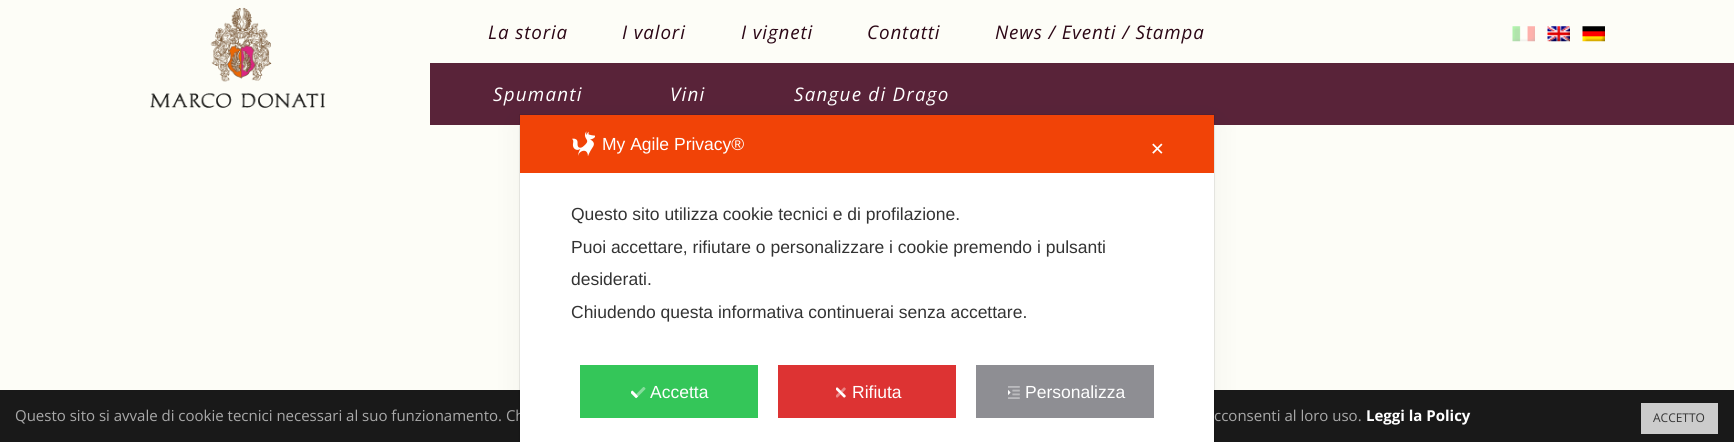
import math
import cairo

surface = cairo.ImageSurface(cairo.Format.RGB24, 1734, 442)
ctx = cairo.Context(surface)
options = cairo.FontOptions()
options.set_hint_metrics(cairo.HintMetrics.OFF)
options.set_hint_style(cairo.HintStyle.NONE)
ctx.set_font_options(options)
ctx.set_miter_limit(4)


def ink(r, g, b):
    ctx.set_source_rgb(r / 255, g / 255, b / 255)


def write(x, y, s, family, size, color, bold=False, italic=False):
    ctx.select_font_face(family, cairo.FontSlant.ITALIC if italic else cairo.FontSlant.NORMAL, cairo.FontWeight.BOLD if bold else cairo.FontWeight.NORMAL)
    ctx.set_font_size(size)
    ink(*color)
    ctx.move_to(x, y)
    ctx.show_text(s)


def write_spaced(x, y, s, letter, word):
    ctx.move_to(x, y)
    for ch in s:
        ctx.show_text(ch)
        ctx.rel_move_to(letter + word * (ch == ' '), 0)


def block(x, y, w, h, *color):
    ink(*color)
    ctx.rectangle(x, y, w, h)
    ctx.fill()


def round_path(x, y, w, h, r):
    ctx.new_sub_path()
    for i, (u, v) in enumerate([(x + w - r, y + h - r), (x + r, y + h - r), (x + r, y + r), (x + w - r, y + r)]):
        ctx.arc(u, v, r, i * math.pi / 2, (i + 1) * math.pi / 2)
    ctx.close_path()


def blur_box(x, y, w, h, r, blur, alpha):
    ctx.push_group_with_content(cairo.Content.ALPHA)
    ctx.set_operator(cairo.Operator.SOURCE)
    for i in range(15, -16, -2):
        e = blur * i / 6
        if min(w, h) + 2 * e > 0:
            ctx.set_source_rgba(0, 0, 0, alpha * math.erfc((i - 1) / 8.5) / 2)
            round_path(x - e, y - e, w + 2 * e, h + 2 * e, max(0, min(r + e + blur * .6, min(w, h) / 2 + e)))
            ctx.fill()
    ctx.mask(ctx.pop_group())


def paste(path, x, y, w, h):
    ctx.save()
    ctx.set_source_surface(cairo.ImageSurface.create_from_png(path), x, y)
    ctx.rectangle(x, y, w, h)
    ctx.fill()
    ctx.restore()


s1 = dict(family="Open Sans", size=15, color=(169, 169, 169))
s2 = dict(family="Liberation Sans", size=17.5, color=(255, 255, 255))
s3 = dict(family="DejaVu Sans", size=17.5, color=(255, 255, 255))
s4 = dict(family="Liberation Sans", size=17.5, color=(51, 51, 51))
s5 = dict(family="Open Sans", size=15, color=(255, 255, 255), bold=True)
s6 = dict(family="Open Sans", size=12, color=(51, 51, 51))

ink(253, 253, 247)
ctx.paint()
paste("pic1.png", 150, 7, 175, 101)
ctx.select_font_face("Open Sans", cairo.FontSlant.ITALIC)
ctx.set_font_size(18.75)
ink(44, 7, 22)
write_spaced(488, 39, "La storia", 0.9, 0)
write_spaced(622, 39, "I valori", 0.9, 0)
write_spaced(741, 39, "I vigneti", 0.9, 0)
write_spaced(867, 39, "Contatti", 0.9, 0)
write_spaced(995, 39, "News / Eventi / Stampa", 0.9, 0)
paste("pic2.png", 1512, 26, 23, 16)
paste("pic3.png", 1547, 26, 23, 16)
paste("pic4.png", 1582, 26, 23, 16)
block(430, 63, 1304, 62, 89, 35, 57)
ink(255, 255, 255)
write_spaced(493, 101, "Spumanti", 1.25, 0)
write_spaced(670, 101, "Vini", 1.25, 0)
write_spaced(794, 101, "Sangue di Drago", 1.25, 0)
block(0, 390, 1734, 52, 25, 25, 25)
write(15, 421, "Questo sito si avvale di cookie tecnici necessari al suo funzionamento. Ch", **s1)
write(1214, 421, "cconsenti al loro uso.", **s1)
ctx.rectangle(519.5, 114.5, 695, 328)
ctx.set_source_rgba(0, 0, 0, 0.08)
ctx.set_line_width(1)
ctx.stroke()
ink(0, 0, 0)
blur_box(520, 123, 694, 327, 0, 15, 0.05)
block(520, 173, 694, 269, 255, 255, 255)
block(520, 115, 694, 58, 241, 67, 7)
paste("pic5.png", 572, 131, 23, 25)
write(602, 150, "My Agile Privacy®", **s2)
write(1150, 155, "✕", **s3)
write(571, 220, "Questo sito utilizza cookie tecnici e di profilazione.", **s4)
write(571, 253, "Puoi accettare, rifiutare o personalizzare i cookie premendo i pulsanti", **s4)
write(571, 285, "desiderati.", **s4)
write(571, 318, "Chiudendo questa informativa continuerai senza accettare.", **s4)
block(580, 365, 178, 53, 52, 198, 89)
paste("pic6.png", 631, 387, 15, 12)
write(650, 398, "Accetta", **s2)
block(778, 365, 178, 53, 221, 51, 51)
paste("pic7.png", 836, 387, 10, 11)
write(852, 398, "Rifiuta", **s2)
block(976, 365, 178, 53, 142, 142, 147)
paste("pic8.png", 1008, 386, 12, 13)
write(1025, 398, "Personalizza", **s2)
write(1366, 421, "Leggi la Policy", **s5)
block(1641, 403, 77, 31, 204, 204, 204)
write(1653, 422, "ACCETTO", **s6)
surface.write_to_png("screenshot.png")
